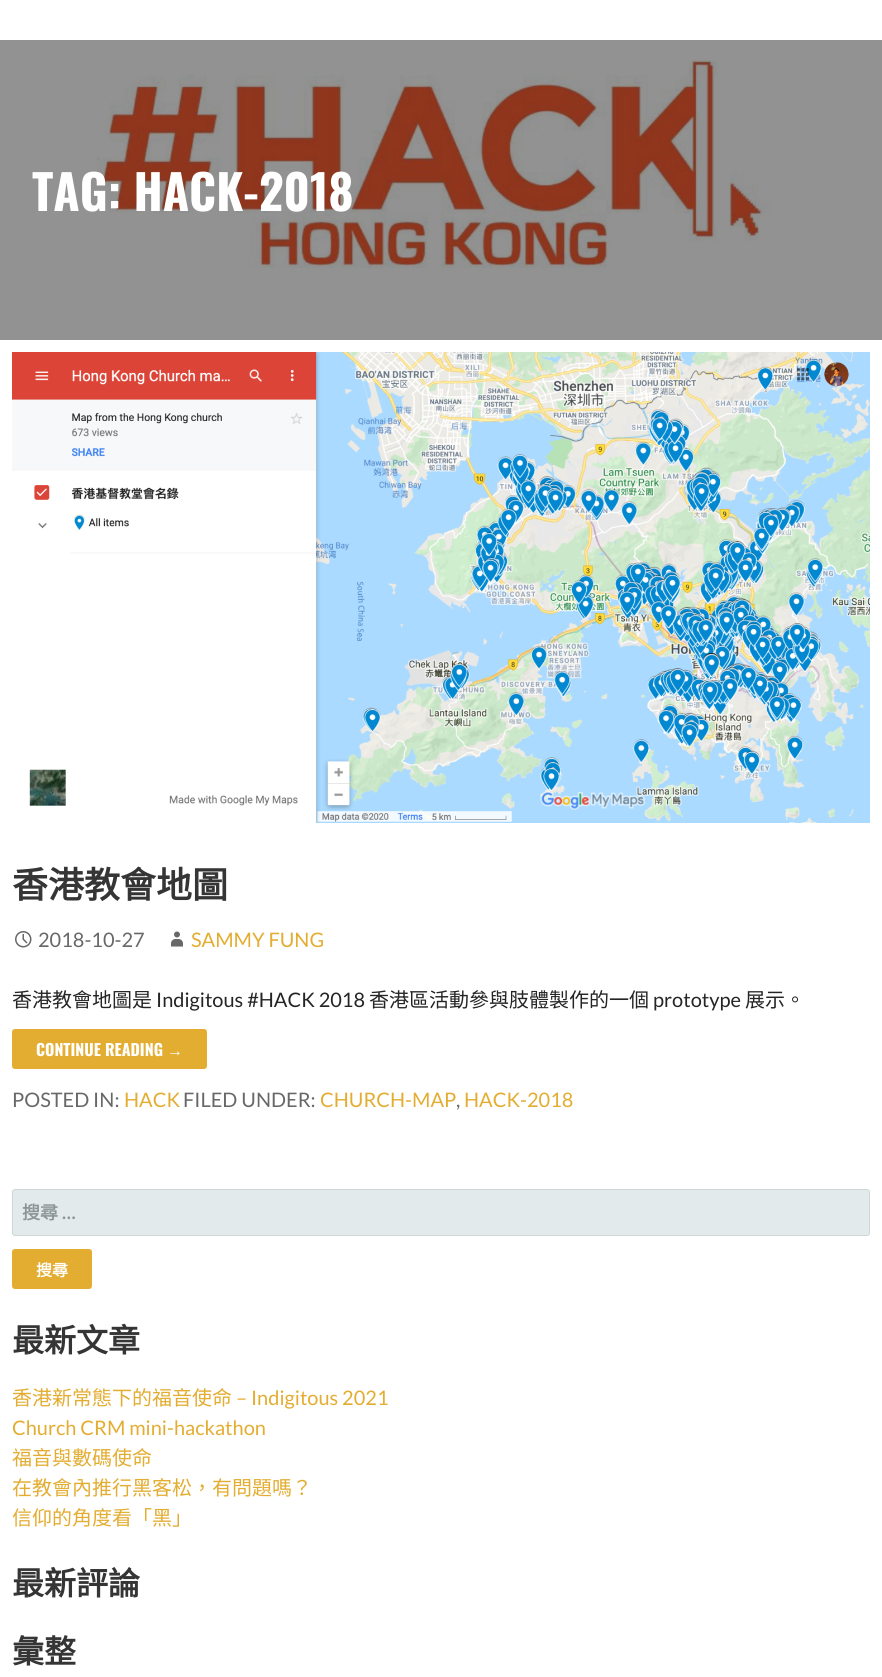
import math
import cairo

surface = cairo.ImageSurface(cairo.Format.RGB24, 882, 1677)
ctx = cairo.Context(surface)
options = cairo.FontOptions()
options.set_hint_metrics(cairo.HintMetrics.OFF)
options.set_hint_style(cairo.HintStyle.NONE)
ctx.set_font_options(options)
ctx.set_miter_limit(4)


def ink(r, g, b):
    ctx.set_source_rgb(r / 255, g / 255, b / 255)


def write(x, y, s, family, size, color, bold=False, italic=False):
    ctx.select_font_face(family, cairo.FontSlant.ITALIC if italic else cairo.FontSlant.NORMAL, cairo.FontWeight.BOLD if bold else cairo.FontWeight.NORMAL)
    ctx.set_font_size(size)
    ink(*color)
    ctx.move_to(x, y)
    ctx.show_text(s)


def round_path(x, y, w, h, r):
    ctx.new_sub_path()
    for i, (u, v) in enumerate([(x + w - r, y + h - r), (x + r, y + h - r), (x + r, y + r), (x + w - r, y + r)]):
        ctx.arc(u, v, r, i * math.pi / 2, (i + 1) * math.pi / 2)
    ctx.close_path()


def paste(path, x, y, w, h):
    ctx.save()
    ctx.set_source_surface(cairo.ImageSurface.create_from_png(path), x, y)
    ctx.rectangle(x, y, w, h)
    ctx.fill()
    ctx.restore()


s1 = dict(family="Oswald", size=48, color=(255, 255, 255), bold=True)
s2 = dict(family="Noto Sans CJK HK", size=36, color=(53, 53, 53), bold=True)
s3 = dict(family="Lato", size=20, color=(104, 104, 104))
s4 = dict(family="Lato", size=20, color=(227, 173, 49))
s5 = dict(family="Noto Sans CJK HK", size=20, color=(37, 37, 37))
s6 = dict(family="Lato", size=20, color=(37, 37, 37))
s7 = dict(family="Oswald", size=16, color=(255, 255, 255), bold=True)
s8 = dict(family="Liberation Sans", size=16, color=(255, 255, 255), bold=True)
s9 = dict(family="Noto Sans CJK HK", size=18, color=(139, 149, 150), bold=True)
s10 = dict(family="Lato", size=18, color=(139, 149, 150), bold=True)
s11 = dict(family="Noto Sans CJK HK", size=16, color=(255, 255, 255), bold=True)
s12 = dict(family="Noto Sans CJK HK", size=32, color=(53, 53, 53), bold=True)
s13 = dict(family="Noto Sans CJK HK", size=20, color=(227, 173, 49))

ink(255, 255, 255)
ctx.paint()
paste("pic1.png", 0, 40, 882, 300)
write(32, 211, "TAG: HACK-2018", **s1)
paste("pic2.png", 12, 352, 858, 471)
write(12, 898, "香港教會地圖", **s2)
paste("pic3.png", 15, 931, 17, 17)
write(38, 947, "2018-10-27", **s3)
paste("pic4.png", 171, 931, 12, 16)
write(191, 947, "SAMMY FUNG", **s4)
write(12, 1007, "香港教會地圖是", **s5)
write(156, 1007, "Indigitous #HACK 2018", **s6)
write(369, 1007, "香港區活動參與肢體製作的一個", **s5)
write(653, 1007, "prototype", **s6)
write(745, 1007, "展示。", **s5)
ink(227, 173, 49)
round_path(12, 1029, 195, 40, 3)
ctx.fill()
write(36, 1056, "CONTINUE READING", **s7)
write(167, 1056, "→", **s8)
write(12, 1107, "POSTED IN:", **s3)
write(124, 1107, "HACK", **s4)
write(183, 1107, "FILED UNDER:", **s3)
write(320, 1107, "CHURCH-MAP", **s4)
write(456, 1107, ",", **s3)
write(464, 1107, "HACK-2018", **s4)
ink(227, 234, 235)
round_path(12, 1189, 858, 47, 3)
ctx.fill()
round_path(12.5, 1189.5, 857, 46, 2.5)
ctx.set_source_rgba(0.145, 0.145, 0.145, 0.1)
ctx.set_line_width(1)
ctx.stroke()
write(22, 1219, "搜尋", **s9)
write(62, 1219, "…", **s10)
ink(227, 173, 49)
round_path(12, 1249, 80, 40, 3)
ctx.fill()
write(36, 1276, "搜尋", **s11)
write(12, 1352, "最新文章", **s12)
write(12, 1405, "香港新常態下的福音使命", **s13)
write(236, 1405, "– Indigitous 2021", **s4)
write(12, 1435, "Church CRM mini-hackathon", **s4)
write(12, 1465, "福音與數碼使命", **s13)
write(12, 1495, "在教會內推行黑客松，有問題嗎？", **s13)
write(12, 1525, "信仰的角度看「黑」", **s13)
write(12, 1595, "最新評論", **s12)
write(12, 1663, "彙整", **s12)
surface.write_to_png("screenshot.png")
